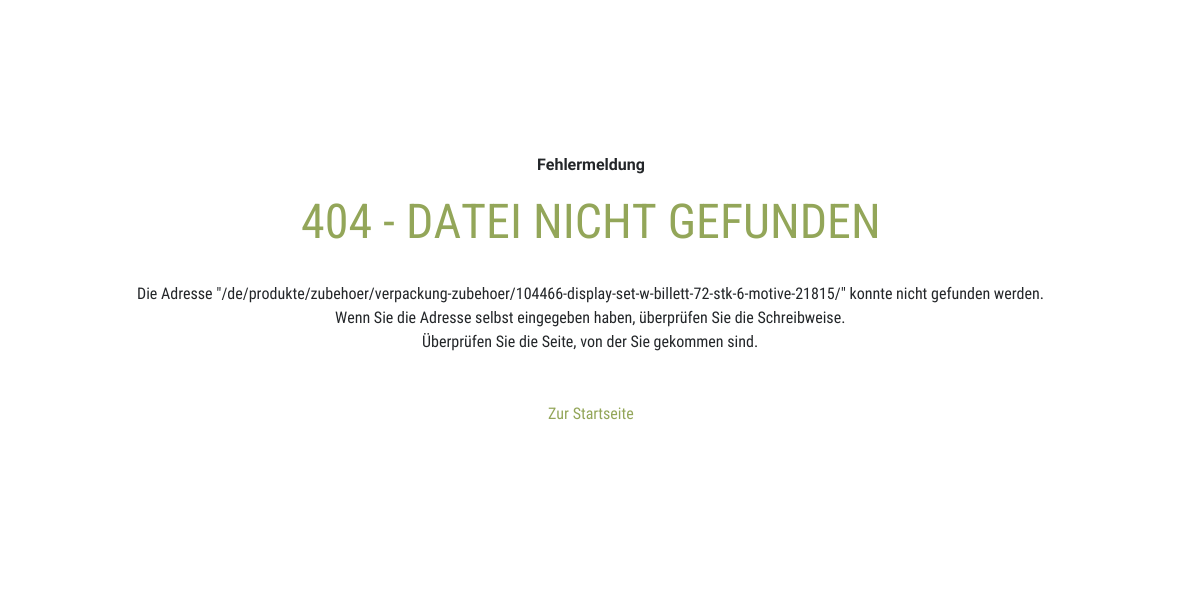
import math
import cairo

surface = cairo.ImageSurface(cairo.Format.RGB24, 1181, 603)
ctx = cairo.Context(surface)
options = cairo.FontOptions()
options.set_hint_metrics(cairo.HintMetrics.OFF)
options.set_hint_style(cairo.HintStyle.NONE)
ctx.set_font_options(options)
ctx.set_miter_limit(4)


def ink(r, g, b):
    ctx.set_source_rgb(r / 255, g / 255, b / 255)


def write(x, y, s, family, size, color, bold=False, italic=False):
    ctx.select_font_face(family, cairo.FontSlant.ITALIC if italic else cairo.FontSlant.NORMAL, cairo.FontWeight.BOLD if bold else cairo.FontWeight.NORMAL)
    ctx.set_font_size(size)
    ink(*color)
    ctx.move_to(x, y)
    ctx.show_text(s)


s1 = dict(family="Roboto", size=16, color=(35, 38, 41), bold=True)
s2 = dict(family="Roboto Condensed", size=48, color=(147, 166, 89))
s3 = dict(family="Roboto Condensed", size=16, color=(35, 38, 41))
s4 = dict(family="Roboto Condensed", size=16, color=(147, 166, 89))

ink(255, 255, 255)
ctx.paint()
write(537, 170, "Fehlermeldung", **s1)
write(301, 238, "404 - DATEI NICHT GEFUNDEN", **s2)
write(137, 299, "Die Adresse \"/de/produkte/zubehoer/verpackung-zubehoer/104466-display-set-w-billett-72-stk-6-motive-21815/\" konnte nicht gefunden werden.", **s3)
write(335, 323, "Wenn Sie die Adresse selbst eingegeben haben, überprüfen Sie die Schreibweise.", **s3)
write(422, 347, "Überprüfen Sie die Seite, von der Sie gekommen sind.", **s3)
write(548, 419, "Zur Startseite", **s4)
surface.write_to_png("screenshot.png")
